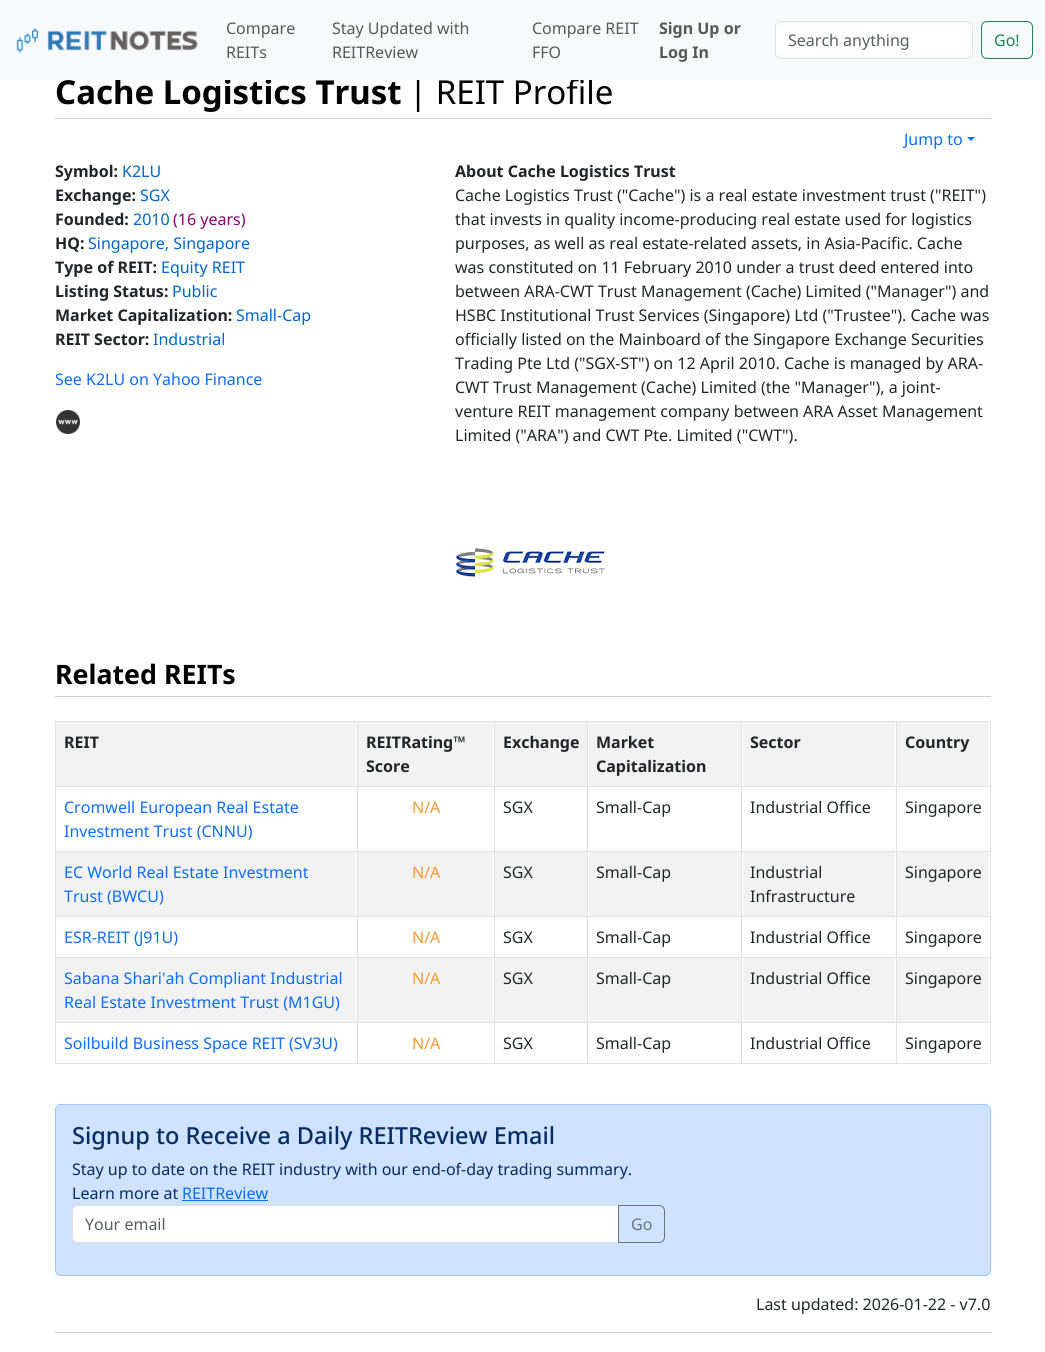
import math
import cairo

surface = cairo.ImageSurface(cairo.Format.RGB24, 1045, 1352)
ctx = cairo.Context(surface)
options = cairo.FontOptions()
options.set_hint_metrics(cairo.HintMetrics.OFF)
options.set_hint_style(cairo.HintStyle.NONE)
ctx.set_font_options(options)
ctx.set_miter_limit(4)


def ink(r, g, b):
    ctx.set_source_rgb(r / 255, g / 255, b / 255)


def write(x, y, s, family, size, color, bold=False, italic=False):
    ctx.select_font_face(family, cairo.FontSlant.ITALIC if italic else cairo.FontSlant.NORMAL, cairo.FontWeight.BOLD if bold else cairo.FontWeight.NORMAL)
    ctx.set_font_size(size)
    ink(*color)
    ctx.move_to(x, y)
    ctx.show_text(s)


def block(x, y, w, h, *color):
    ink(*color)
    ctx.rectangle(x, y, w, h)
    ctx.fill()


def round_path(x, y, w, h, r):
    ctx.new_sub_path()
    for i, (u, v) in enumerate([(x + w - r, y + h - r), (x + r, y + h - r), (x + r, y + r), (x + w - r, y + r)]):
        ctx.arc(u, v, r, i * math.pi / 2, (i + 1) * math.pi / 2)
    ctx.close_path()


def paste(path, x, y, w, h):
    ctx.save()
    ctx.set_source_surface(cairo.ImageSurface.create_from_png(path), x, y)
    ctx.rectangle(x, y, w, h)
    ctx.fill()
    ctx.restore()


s1 = dict(family="Noto Sans", size=33, color=(0, 0, 0), bold=True)
s2 = dict(family="Noto Sans", size=33, color=(0, 0, 0))
s3 = dict(family="Noto Sans", size=16, color=(87, 87, 88))
s4 = dict(family="Noto Sans", size=16, color=(87, 87, 88), bold=True)
s5 = dict(family="Noto Sans", size=16, color=(89, 92, 95))
s6 = dict(family="Noto Sans", size=16, color=(25, 135, 84))
s7 = dict(family="Noto Sans", size=16, color=(13, 110, 253))
s8 = dict(family="Noto Sans", size=16, color=(33, 37, 41), bold=True)
s9 = dict(family="Noto Sans", size=16, color=(0, 102, 204))
s10 = dict(family="Noto Sans", size=16, color=(140, 0, 115))
s11 = dict(family="Noto Sans", size=16, color=(33, 37, 41))
s12 = dict(family="Noto Sans", size=26.75, color=(0, 0, 0), bold=True)
s13 = dict(family="Noto Sans", size=16, color=(255, 153, 51))
s14 = dict(family="Noto Sans Medium", size=23.5, color=(5, 44, 101))
s15 = dict(family="Noto Sans", size=16, color=(5, 44, 101))
s16 = dict(family="Noto Sans", size=16, color=(108, 117, 125))

ink(255, 255, 255)
ctx.paint()
write(55, 104, "Cache Logistics Trust", **s1)
write(409, 104, "| REIT Profile", **s2)
block(0, 0, 1045, 80, 248, 249, 250)
paste("pic1.png", 16, 27, 182, 27)
write(226, 34, "Compare", **s3)
write(226, 58, "REITs", **s3)
write(332, 34, "Stay Updated with", **s3)
write(332, 58, "REITReview", **s3)
write(532, 34, "Compare REIT", **s3)
write(532, 58, "FFO", **s3)
write(659, 34, "Sign Up or", **s4)
write(659, 58, "Log In", **s4)
ink(255, 255, 255)
round_path(775.5, 21.5, 197, 37, 5.5)
ctx.fill_preserve()
ink(222, 226, 230)
ctx.set_line_width(1)
ctx.stroke()
write(788, 46, "Search anything", **s5)
round_path(981.5, 21.5, 51, 37, 5.5)
ink(25, 135, 84)
ctx.stroke()
write(994, 46, "Go!", **s6)
block(55, 118, 936, 1, 204, 204, 204)
write(904, 145, "Jump to", **s7)
ctx.new_path()
ctx.move_to(967, 137)
ctx.line_to(975, 137)
ctx.line_to(971, 141)
ctx.close_path()
ctx.fill()
write(55, 177, "Symbol:", **s8)
write(122, 177, "K2LU", **s9)
write(55, 201, "Exchange:", **s8)
write(140, 201, "SGX", **s9)
write(55, 225, "Founded:", **s8)
write(133, 225, "2010", **s9)
write(173, 225, "(16 years)", **s10)
write(55, 249, "HQ:", **s8)
write(88, 249, "Singapore, Singapore", **s9)
write(55, 273, "Type of REIT:", **s8)
write(161, 273, "Equity REIT", **s9)
write(55, 297, "Listing Status:", **s8)
write(172, 297, "Public", **s9)
write(55, 321, "Market Capitalization:", **s8)
write(236, 321, "Small-Cap", **s9)
write(55, 345, "REIT Sector:", **s8)
write(153, 345, "Industrial", **s9)
write(55, 385, "See K2LU on Yahoo Finance", **s7)
paste("pic2.png", 56, 410, 24, 24)
write(455, 177, "About Cache Logistics Trust", **s8)
write(455, 201, "Cache Logistics Trust (\"Cache\") is a real estate investment trust (\"REIT\")", **s11)
write(455, 225, "that invests in quality income-producing real estate used for logistics", **s11)
write(455, 249, "purposes, as well as real estate-related assets, in Asia-Pacific. Cache", **s11)
write(455, 273, "was constituted on 11 February 2010 under a trust deed entered into", **s11)
write(455, 297, "between ARA-CWT Trust Management (Cache) Limited (\"Manager\") and", **s11)
write(455, 321, "HSBC Institutional Trust Services (Singapore) Ltd (\"Trustee\"). Cache was", **s11)
write(455, 345, "officially listed on the Mainboard of the Singapore Exchange Securities", **s11)
write(455, 369, "Trading Pte Ltd (\"SGX-ST\") on 12 April 2010. Cache is managed by ARA-", **s11)
write(455, 393, "CWT Trust Management (Cache) Limited (the \"Manager\"), a joint-", **s11)
write(455, 417, "venture REIT management company between ARA Asset Management", **s11)
write(455, 441, "Limited (\"ARA\") and CWT Pte. Limited (\"CWT\").", **s11)
paste("pic3.png", 456, 548, 149, 29)
block(55, 696, 936, 1, 204, 204, 204)
write(55, 684, "Related REITs", **s12)
block(55, 721, 936, 1, 222, 226, 230)
block(56, 722, 300, 64, 242, 242, 242)
write(64, 748, "REIT", **s8)
block(358, 722, 135, 64, 242, 242, 242)
write(366, 748, "REITRating™", **s8)
write(366, 772, "Score", **s8)
block(495, 722, 92, 64, 242, 242, 242)
write(503, 748, "Exchange", **s8)
block(589, 722, 152, 64, 242, 242, 242)
write(596, 748, "Market", **s8)
write(596, 772, "Capitalization", **s8)
block(743, 722, 152, 64, 242, 242, 242)
write(750, 748, "Sector", **s8)
block(897, 722, 92, 64, 242, 242, 242)
write(905, 748, "Country", **s8)
block(55, 786, 936, 1, 222, 226, 230)
write(64, 813, "Cromwell European Real Estate", **s7)
write(64, 837, "Investment Trust (CNNU)", **s7)
write(412, 813, "N/A", **s13)
write(503, 813, "SGX", **s11)
write(596, 813, "Small-Cap", **s11)
write(750, 813, "Industrial Office", **s11)
write(905, 813, "Singapore", **s11)
block(55, 851, 936, 1, 222, 226, 230)
block(56, 852, 300, 64, 242, 242, 242)
write(64, 878, "EC World Real Estate Investment", **s7)
write(64, 902, "Trust (BWCU)", **s7)
block(358, 852, 135, 64, 242, 242, 242)
write(412, 878, "N/A", **s13)
block(495, 852, 92, 64, 242, 242, 242)
write(503, 878, "SGX", **s11)
block(589, 852, 152, 64, 242, 242, 242)
write(596, 878, "Small-Cap", **s11)
block(743, 852, 152, 64, 242, 242, 242)
write(750, 878, "Industrial", **s11)
write(750, 902, "Infrastructure", **s11)
block(897, 852, 92, 64, 242, 242, 242)
write(905, 878, "Singapore", **s11)
block(55, 916, 936, 1, 222, 226, 230)
write(64, 943, "ESR-REIT (J91U)", **s7)
write(412, 943, "N/A", **s13)
write(503, 943, "SGX", **s11)
write(596, 943, "Small-Cap", **s11)
write(750, 943, "Industrial Office", **s11)
write(905, 943, "Singapore", **s11)
block(55, 957, 936, 1, 222, 226, 230)
block(56, 958, 300, 64, 242, 242, 242)
write(64, 984, "Sabana Shari'ah Compliant Industrial", **s7)
write(64, 1008, "Real Estate Investment Trust (M1GU)", **s7)
block(358, 958, 135, 64, 242, 242, 242)
write(412, 984, "N/A", **s13)
block(495, 958, 92, 64, 242, 242, 242)
write(503, 984, "SGX", **s11)
block(589, 958, 152, 64, 242, 242, 242)
write(596, 984, "Small-Cap", **s11)
block(743, 958, 152, 64, 242, 242, 242)
write(750, 984, "Industrial Office", **s11)
block(897, 958, 92, 64, 242, 242, 242)
write(905, 984, "Singapore", **s11)
block(55, 1022, 936, 1, 222, 226, 230)
block(55, 1063, 936, 1, 222, 226, 230)
block(55, 721, 1, 343, 222, 226, 230)
write(64, 1049, "Soilbuild Business Space REIT (SV3U)", **s7)
block(357, 721, 1, 343, 222, 226, 230)
write(412, 1049, "N/A", **s13)
block(494, 721, 1, 343, 222, 226, 230)
write(503, 1049, "SGX", **s11)
block(587, 721, 1, 343, 222, 226, 230)
write(596, 1049, "Small-Cap", **s11)
block(741, 721, 1, 343, 222, 226, 230)
write(750, 1049, "Industrial Office", **s11)
block(990, 721, 1, 343, 222, 226, 230)
block(896, 721, 1, 343, 222, 226, 230)
write(905, 1049, "Singapore", **s11)
ink(207, 226, 255)
round_path(55.5, 1104.5, 935, 171, 5.5)
ctx.fill_preserve()
ink(158, 197, 254)
ctx.stroke()
write(72, 1144, "Signup to Receive a Daily REITReview Email", **s14)
write(72, 1175, "Stay up to date on the REIT industry with our end-of-day trading summary.", **s15)
write(72, 1199, "Learn more at", **s15)
write(182, 1199, "REITReview", **s7)
block(182, 1200, 86, 1, 13, 110, 253)
ink(255, 255, 255)
ctx.new_path()
ctx.move_to(78, 1205.5)
ctx.line_to(618.5, 1205.5)
ctx.line_to(618.5, 1242.5)
ctx.line_to(78, 1242.5)
ctx.curve_to(75, 1242.5, 72.5, 1240, 72.5, 1237)
ctx.line_to(72.5, 1211)
ctx.curve_to(72.5, 1208, 75, 1205.5, 78, 1205.5)
ctx.close_path()
ctx.fill_preserve()
ink(222, 226, 230)
ctx.stroke()
write(85, 1230, "Your email", **s5)
ctx.new_path()
ctx.move_to(618.5, 1205.5)
ctx.line_to(659, 1205.5)
ctx.curve_to(662, 1205.5, 664.5, 1208, 664.5, 1211)
ctx.line_to(664.5, 1237)
ctx.curve_to(664.5, 1240, 662, 1242.5, 659, 1242.5)
ctx.line_to(618.5, 1242.5)
ctx.close_path()
ink(108, 117, 125)
ctx.stroke()
write(631, 1230, "Go", **s16)
write(756, 1310, "Last updated: 2026-01-22 - v7.0", **s11)
block(55, 1332, 936, 1, 200, 201, 202)
surface.write_to_png("screenshot.png")
